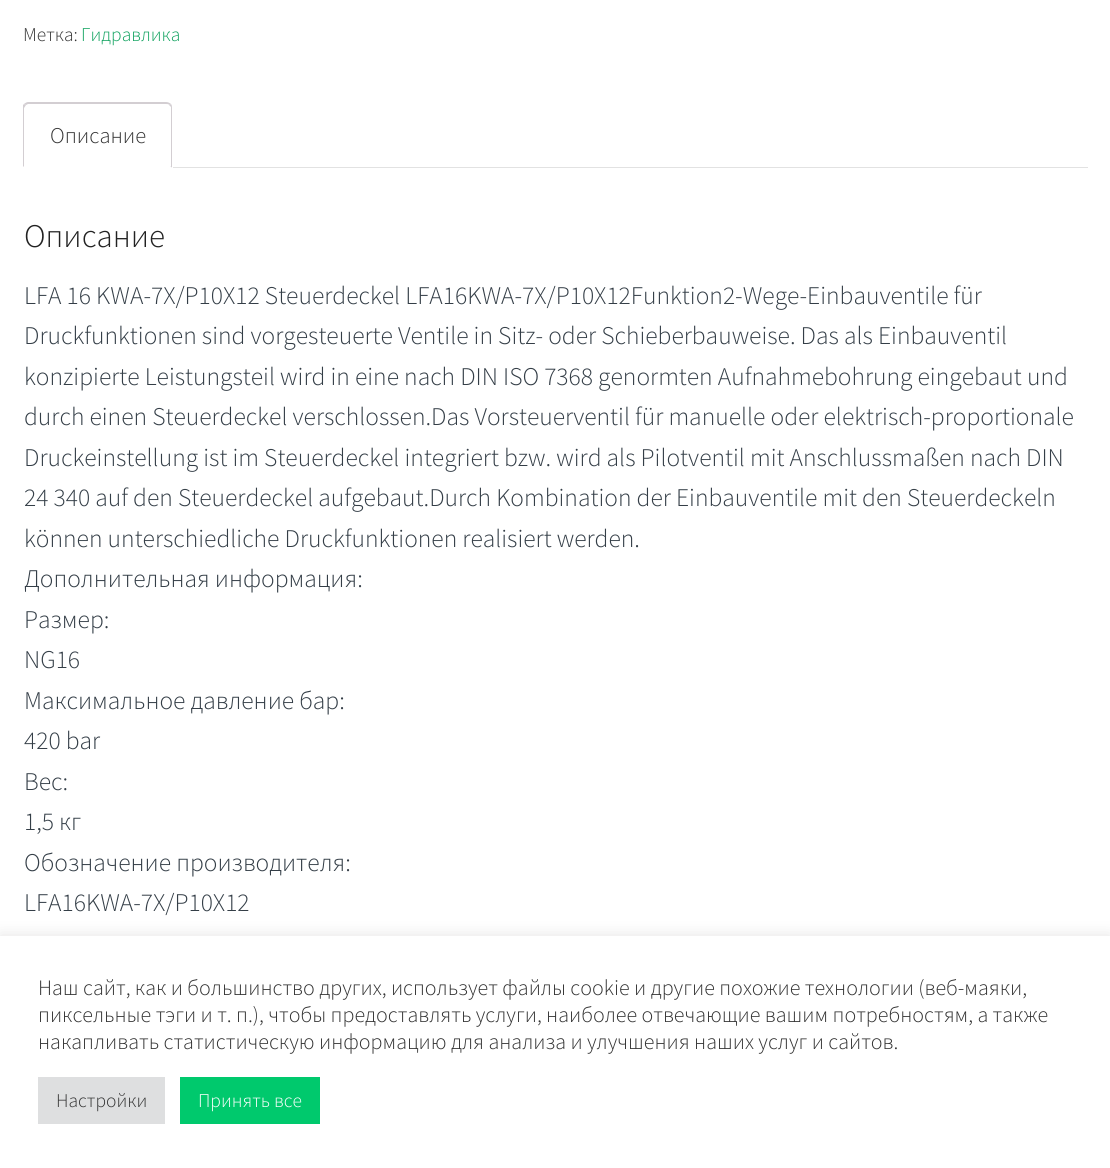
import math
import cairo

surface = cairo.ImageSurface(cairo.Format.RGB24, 1110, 1168)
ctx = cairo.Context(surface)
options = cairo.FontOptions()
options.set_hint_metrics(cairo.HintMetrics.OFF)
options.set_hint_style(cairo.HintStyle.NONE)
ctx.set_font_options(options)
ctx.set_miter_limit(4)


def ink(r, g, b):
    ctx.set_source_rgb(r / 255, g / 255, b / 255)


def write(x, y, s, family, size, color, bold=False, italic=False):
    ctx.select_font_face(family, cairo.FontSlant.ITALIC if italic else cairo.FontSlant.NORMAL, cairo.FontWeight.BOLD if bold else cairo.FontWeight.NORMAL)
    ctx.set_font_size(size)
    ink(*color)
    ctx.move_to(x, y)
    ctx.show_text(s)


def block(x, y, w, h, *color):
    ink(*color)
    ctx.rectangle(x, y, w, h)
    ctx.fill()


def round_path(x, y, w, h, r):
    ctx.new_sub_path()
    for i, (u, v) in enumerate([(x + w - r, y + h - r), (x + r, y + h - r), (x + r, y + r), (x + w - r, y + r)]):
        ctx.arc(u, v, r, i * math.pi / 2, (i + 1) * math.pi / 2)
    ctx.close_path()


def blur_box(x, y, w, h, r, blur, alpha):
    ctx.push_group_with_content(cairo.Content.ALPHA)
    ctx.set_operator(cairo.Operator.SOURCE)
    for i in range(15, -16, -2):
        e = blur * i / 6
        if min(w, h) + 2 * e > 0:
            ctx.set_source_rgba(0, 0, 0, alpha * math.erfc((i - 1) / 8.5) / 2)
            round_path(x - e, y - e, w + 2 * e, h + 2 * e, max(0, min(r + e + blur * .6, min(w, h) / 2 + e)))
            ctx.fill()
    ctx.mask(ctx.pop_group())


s1 = dict(family="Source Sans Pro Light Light", size=19.5, color=(51, 51, 51))
s2 = dict(family="Source Sans Pro Light Light", size=19.5, color=(13, 161, 93))
s3 = dict(family="Source Sans Pro Light Light", size=22.5, color=(51, 51, 51))
s4 = dict(family="Source Sans Pro Light Light", size=33, color=(34, 34, 34))
s5 = dict(family="Source Sans Pro Light Light", size=25.5, color=(52, 62, 71))
s6 = dict(family="Source Sans Pro Light Light", size=22, color=(51, 51, 51))
s7 = dict(family="Source Sans Pro Light Light", size=19.5, color=(255, 255, 255))

ink(255, 255, 255)
ctx.paint()
write(23, 41, "Метка:", **s1)
write(81, 41, "Гидравлика", **s2)
ink(211, 206, 210)
ctx.new_path()
ctx.move_to(28, 102)
ctx.curve_to(27, 102, 25, 103, 24, 104)
ctx.line_to(26, 105)
ctx.line_to(28, 104)
ctx.line_to(166, 104)
ctx.curve_to(167, 104, 169, 104, 169, 105)
ctx.line_to(171, 104)
ctx.curve_to(170, 103, 168, 102, 166, 102)
ctx.close_path()
ctx.fill()
ctx.new_path()
ctx.move_to(171, 104)
ctx.curve_to(172, 105, 172, 107, 172, 108)
ctx.line_to(172, 168)
ctx.line_to(170, 166)
ctx.line_to(171, 166)
ctx.line_to(171, 107)
ctx.line_to(169, 105)
ctx.close_path()
ctx.fill()
ink(255, 255, 255)
ctx.new_path()
ctx.move_to(22, 168)
ctx.line_to(172, 168)
ctx.line_to(170, 166)
ctx.line_to(24, 166)
ctx.close_path()
ctx.fill()
ctx.save()
ctx.rectangle(23, 102, 1065, 66)
ctx.clip()
ink(211, 206, 210)
ctx.new_path()
ctx.move_to(22, 168)
ctx.line_to(22, 106)
ctx.line_to(24, 104)
ctx.line_to(26, 105)
ctx.line_to(24, 108)
ctx.line_to(24, 166)
ctx.close_path()
ctx.fill()
ctx.restore()
write(50, 143, "Описание", **s3)
block(173, 167, 915, 1, 226, 226, 226)
write(24, 247, "Описание", **s4)
write(24, 304, "LFA 16 KWA-7X/P10X12 Steuerdeckel LFA16KWA-7X/P10X12Funktion2-Wege-Einbauventile für", **s5)
write(24, 344, "Druckfunktionen sind vorgesteuerte Ventile in Sitz- oder Schieberbauweise. Das als Einbauventil", **s5)
write(24, 385, "konzipierte Leistungsteil wird in eine nach DIN ISO 7368 genormten Aufnahmebohrung eingebaut und", **s5)
write(24, 425, "durch einen Steuerdeckel verschlossen.Das Vorsteuerventil für manuelle oder elektrisch-proportionale", **s5)
write(24, 466, "Druckeinstellung ist im Steuerdeckel integriert bzw. wird als Pilotventil mit Anschlussmaßen nach DIN", **s5)
write(24, 506, "24 340 auf den Steuerdeckel aufgebaut.Durch Kombination der Einbauventile mit den Steuerdeckeln", **s5)
write(24, 547, "können unterschiedliche Druckfunktionen realisiert werden.", **s5)
write(24, 587, "Дополнительная информация:", **s5)
write(24, 628, "Размер:", **s5)
write(24, 668, "NG16", **s5)
write(24, 709, "Максимальное давление бар:", **s5)
write(24, 749, "420 bar", **s5)
write(24, 790, "Вес:", **s5)
write(24, 830, "1,5 кг", **s5)
write(24, 871, "Обозначение производителя:", **s5)
write(24, 911, "LFA16KWA-7X/P10X12", **s5)
ink(172, 171, 171)
blur_box(0, 935, 1110, 232, 0, 7.5, 0.3)
block(0, 936, 1110, 232, 255, 255, 255)
write(38, 995, "Наш сайт, как и большинство других, использует файлы cookie и другие похожие технологии (веб-маяки,", **s6)
write(38, 1022, "пиксельные тэги и т. п.), чтобы предоставлять услуги, наиболее отвечающие вашим потребностям, а также", **s6)
write(38, 1049, "накапливать статистическую информацию для анализа и улучшения наших услуг и сайтов.", **s6)
block(38, 1077, 127, 47, 222, 223, 224)
write(56, 1107, "Настройки", **s1)
block(180, 1077, 140, 47, 0, 201, 109)
write(198, 1107, "Принять все", **s7)
surface.write_to_png("screenshot.png")
